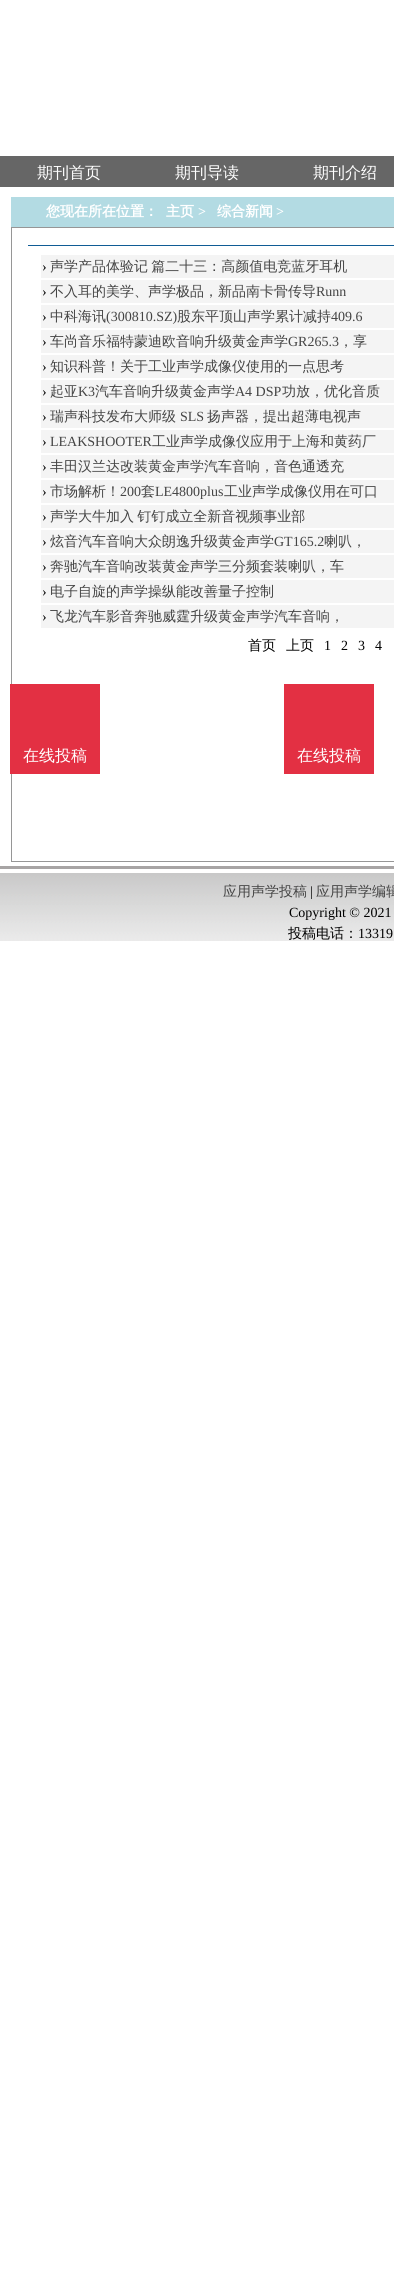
import math
import cairo

surface = cairo.ImageSurface(cairo.Format.RGB24, 394, 2281)
ctx = cairo.Context(surface)
options = cairo.FontOptions()
options.set_hint_metrics(cairo.HintMetrics.OFF)
options.set_hint_style(cairo.HintStyle.NONE)
ctx.set_font_options(options)
ctx.set_miter_limit(4)


def ink(r, g, b):
    ctx.set_source_rgb(r / 255, g / 255, b / 255)


def write(x, y, s, family, size, color, bold=False, italic=False):
    ctx.select_font_face(family, cairo.FontSlant.ITALIC if italic else cairo.FontSlant.NORMAL, cairo.FontWeight.BOLD if bold else cairo.FontWeight.NORMAL)
    ctx.set_font_size(size)
    ink(*color)
    ctx.move_to(x, y)
    ctx.show_text(s)


def write_spaced(x, y, s, letter, word):
    ctx.move_to(x, y)
    for ch in s:
        ctx.show_text(ch)
        ctx.rel_move_to(letter + word * (ch == ' '), 0)


def block(x, y, w, h, *color):
    ink(*color)
    ctx.rectangle(x, y, w, h)
    ctx.fill()


def paste(path, x, y, w, h):
    ctx.save()
    ctx.set_source_surface(cairo.ImageSurface.create_from_png(path), x, y)
    ctx.rectangle(x, y, w, h)
    ctx.fill()
    ctx.restore()


s1 = dict(family="WenQuanYi Zen Hei Medium", size=16, color=(255, 255, 255))
s2 = dict(family="WenQuanYi Zen Hei", size=14, color=(255, 255, 255), bold=True)
s3 = dict(family="Liberation Serif", size=14, color=(255, 255, 255), bold=True)
s4 = dict(family="Liberation Serif", size=14, color=(0, 0, 0))
s5 = dict(family="WenQuanYi Zen Hei Medium", size=14, color=(68, 68, 68))
s6 = dict(family="Liberation Serif", size=14, color=(68, 68, 68))
s7 = dict(family="WenQuanYi Zen Hei Medium", size=14, color=(0, 0, 0))

ink(255, 255, 255)
ctx.paint()
block(0, 156, 394, 31, 102, 102, 102)
write(37, 178, "期刊首页", **s1)
write(175, 178, "期刊导读", **s1)
write(313, 178, "期刊介绍", **s1)
block(11, 197, 383, 30, 179, 219, 227)
write(46, 216, "您现在所在位置：", **s2)
write(166, 216, "主页", **s2)
write(198, 216, ">", **s3)
write(217, 216, "综合新闻", **s2)
write(276, 216, ">", **s3)
ctx.rectangle(11.5, 227.5, 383, 634)
ink(150, 150, 150)
ctx.set_line_width(1)
ctx.stroke()
block(28, 245, 366, 1, 16, 92, 149)
block(41, 255, 353, 23, 244, 244, 244)
write(42, 271, "›", **s4)
ctx.select_font_face("WenQuanYi Zen Hei Medium")
ink(68, 68, 68)
write_spaced(50, 271, "声学产品体验记 篇二十三：高颜值电竞蓝牙耳机", 0, -1)
block(41, 280, 353, 23, 244, 244, 244)
write(42, 296, "›", **s4)
write(50, 296, "不入耳的美学、声学极品，新品南卡骨传导", **s5)
write(316, 296, "Runn", **s6)
block(41, 305, 353, 23, 244, 244, 244)
write(42, 321, "›", **s4)
write(50, 321, "中科海讯", **s5)
write(106, 321, "(300810.SZ)", **s6)
write(177, 321, "股东平顶山声学累计减持", **s5)
write(331, 321, "409.6", **s6)
block(41, 330, 353, 23, 244, 244, 244)
write(42, 346, "›", **s4)
write(50, 346, "车尚音乐福特蒙迪欧音响升级黄金声学", **s5)
write(288, 346, "GR265.3", **s6)
write(339, 346, "，享", **s5)
block(41, 355, 353, 23, 244, 244, 244)
write(42, 371, "›", **s4)
write(50, 371, "知识科普！关于工业声学成像仪使用的一点思考", **s5)
block(41, 380, 353, 23, 244, 244, 244)
write(42, 396, "›", **s4)
write(50, 396, "起亚", **s5)
write(78, 396, "K3", **s6)
write(95, 396, "汽车音响升级黄金声学", **s5)
write(235, 396, "A4 DSP", **s6)
write(282, 396, "功放，优化音质", **s5)
block(41, 405, 353, 23, 244, 244, 244)
write(42, 421, "›", **s4)
write(50, 421, "瑞声科技发布大师级", **s5)
write(180, 421, "SLS", **s6)
write(207, 421, "扬声器，提出超薄电视声", **s5)
block(41, 430, 353, 23, 244, 244, 244)
write(42, 446, "›", **s4)
write(50, 446, "LEAKSHOOTER", **s6)
write(152, 446, "工业声学成像仪应用于上海和黄药厂", **s5)
block(41, 455, 353, 23, 244, 244, 244)
write(42, 471, "›", **s4)
write(50, 471, "丰田汉兰达改装黄金声学汽车音响，音色通透充", **s5)
block(41, 480, 353, 23, 244, 244, 244)
write(42, 496, "›", **s4)
write(50, 496, "市场解析！", **s5)
write(120, 496, "200", **s6)
write(141, 496, "套", **s5)
write(155, 496, "LE4800plus", **s6)
write(224, 496, "工业声学成像仪用在可口", **s5)
block(41, 505, 353, 23, 244, 244, 244)
write(42, 521, "›", **s4)
ctx.select_font_face("WenQuanYi Zen Hei Medium")
ink(68, 68, 68)
write_spaced(50, 521, "声学大牛加入 钉钉成立全新音视频事业部", 0, -1)
block(41, 530, 353, 23, 244, 244, 244)
write(42, 546, "›", **s4)
write(50, 546, "炫音汽车音响大众朗逸升级黄金声学", **s5)
write(274, 546, "GT165.2", **s6)
write(324, 546, "喇叭，", **s5)
block(41, 555, 353, 23, 244, 244, 244)
write(42, 571, "›", **s4)
write(50, 571, "奔驰汽车音响改装黄金声学三分频套装喇叭，车", **s5)
block(41, 580, 353, 23, 244, 244, 244)
write(42, 596, "›", **s4)
write(50, 596, "电子自旋的声学操纵能改善量子控制", **s5)
block(41, 605, 353, 23, 244, 244, 244)
write(42, 621, "›", **s4)
write(50, 621, "飞龙汽车影音奔驰威霆升级黄金声学汽车音响，", **s5)
write(248, 650, "首页", **s7)
write(286, 650, "上页", **s7)
write(324, 650, "1", **s4)
write(341, 650, "2", **s4)
write(358, 650, "3", **s4)
write(375, 650, "4", **s4)
block(10, 684, 90, 90, 227, 48, 67)
write(23, 761, "在线投稿", **s1)
block(284, 684, 90, 90, 227, 48, 67)
write(297, 761, "在线投稿", **s1)
paste("pic1.png", 0, 866, 394, 75)
write(223, 896, "应用声学投稿", **s5)
write(310, 896, "|", **s4)
write(316, 896, "应用声学编辑", **s5)
write(289, 917, "Copyright © 2021", **s4)
write(288, 938, "投稿电话：", **s7)
write(358, 938, "13319", **s4)
surface.write_to_png("screenshot.png")
